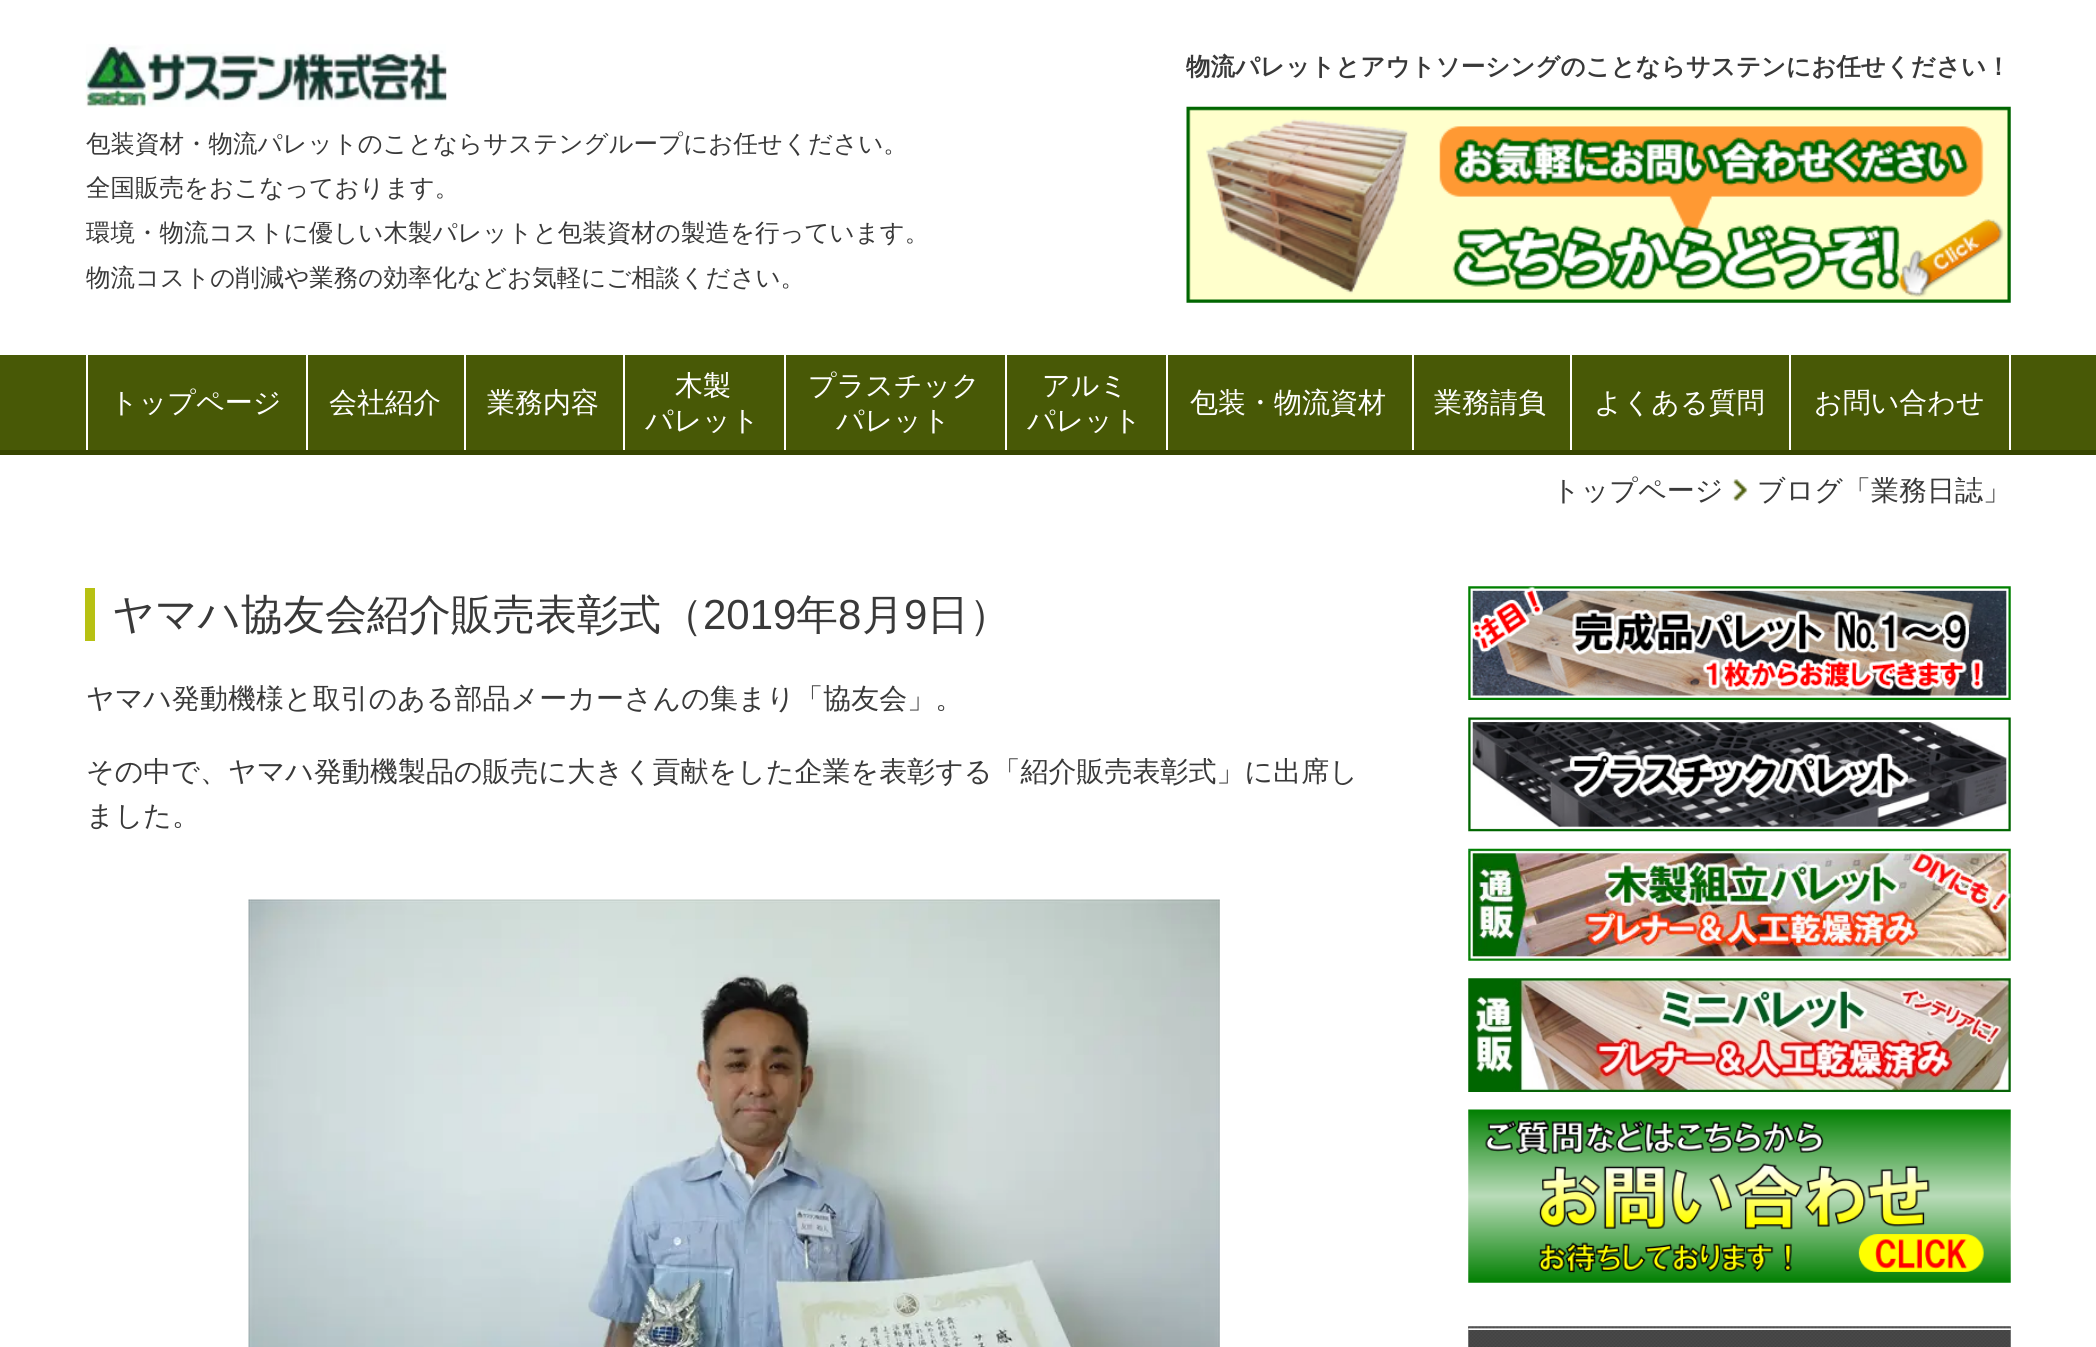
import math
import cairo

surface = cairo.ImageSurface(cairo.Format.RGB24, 2096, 1347)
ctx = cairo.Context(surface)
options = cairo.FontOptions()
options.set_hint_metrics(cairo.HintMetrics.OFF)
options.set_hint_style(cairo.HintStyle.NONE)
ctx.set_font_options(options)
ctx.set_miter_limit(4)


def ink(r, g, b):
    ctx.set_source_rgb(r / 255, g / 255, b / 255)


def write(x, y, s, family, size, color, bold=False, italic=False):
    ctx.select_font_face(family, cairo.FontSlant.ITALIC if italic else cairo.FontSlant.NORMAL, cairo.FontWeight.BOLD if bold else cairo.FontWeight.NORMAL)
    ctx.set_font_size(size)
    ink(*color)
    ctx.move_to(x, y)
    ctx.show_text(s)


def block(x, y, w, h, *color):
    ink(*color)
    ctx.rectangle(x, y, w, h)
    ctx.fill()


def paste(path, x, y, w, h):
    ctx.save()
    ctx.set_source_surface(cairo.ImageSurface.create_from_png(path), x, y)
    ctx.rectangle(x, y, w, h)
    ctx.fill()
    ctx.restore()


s1 = dict(family="WenQuanYi Zen Hei", size=24.5, color=(57, 57, 57), bold=True)
s2 = dict(family="WenQuanYi Zen Hei Medium", size=24.5, color=(57, 57, 57))
s3 = dict(family="WenQuanYi Zen Hei Medium", size=28, color=(255, 255, 255))
s4 = dict(family="WenQuanYi Zen Hei Medium", size=28, color=(57, 57, 57))
s5 = dict(family="WenQuanYi Zen Hei Medium", size=42, color=(57, 57, 57))
s6 = dict(family="Liberation Sans", size=42, color=(57, 57, 57))

ink(255, 255, 255)
ctx.paint()
write(1186, 75, "物流パレットとアウトソーシングのことならサステンにお任せください！", **s1)
paste("pic1.png", 1186, 106, 825, 197)
paste("pic2.png", 85, 44, 362, 63)
write(86, 152, "包装資材・物流パレットのことならサステングループにお任せください。", **s2)
write(86, 196, "全国販売をおこなっております。", **s2)
write(86, 241, "環境・物流コストに優しい木製パレットと包装資材の製造を行っています。", **s2)
write(86, 286, "物流コストの削減や業務の効率化などお気軽にご相談ください。", **s2)
block(0, 355, 2096, 95, 72, 89, 6)
block(0, 450, 2096, 5, 55, 69, 0)
block(306, 355, 2, 95, 255, 255, 255)
block(86, 355, 2, 95, 255, 255, 255)
write(110, 412, "トップページ", **s3)
block(464, 355, 2, 95, 255, 255, 255)
write(329, 412, "会社紹介", **s3)
block(623, 355, 2, 95, 255, 255, 255)
write(487, 412, "業務内容", **s3)
block(784, 355, 2, 95, 255, 255, 255)
write(675, 395, "木製", **s3)
write(645, 430, "パレット", **s3)
block(1005, 355, 2, 95, 255, 255, 255)
write(808, 395, "プラスチック", **s3)
write(836, 430, "パレット", **s3)
block(1166, 355, 2, 95, 255, 255, 255)
write(1042, 395, "アルミ", **s3)
write(1027, 430, "パレット", **s3)
block(1412, 355, 2, 95, 255, 255, 255)
write(1190, 412, "包装・物流資材", **s3)
block(1570, 355, 2, 95, 255, 255, 255)
write(1434, 412, "業務請負", **s3)
block(1789, 355, 2, 95, 255, 255, 255)
write(1594, 412, "よくある質問", **s3)
block(2009, 355, 2, 95, 255, 255, 255)
write(1814, 412, "お問い合わせ", **s3)
write(1552, 500, "トップページ", **s4)
paste("pic3.png", 1732, 479, 16, 22)
write(1757, 500, "ブログ「業務日誌」", **s4)
block(85, 588, 10, 53, 183, 193, 19)
write(112, 629, "ヤマハ協友会紹介販売表彰式（", **s5)
write(703, 629, "2019", **s6)
write(796, 629, "年", **s5)
write(838, 629, "8", **s6)
write(862, 629, "月", **s5)
write(904, 629, "9", **s6)
write(927, 629, "日）", **s5)
write(86, 708, "ヤマハ発動機様と取引のある部品メーカーさんの集まり「協友会」。", **s4)
write(86, 781, "その中で、ヤマハ発動機製品の販売に大きく貢献をした企業を表彰する「紹介販売表彰式」に出席し", **s4)
write(86, 825, "ました。", **s4)
paste("pic4.png", 248, 899, 972, 448)
paste("pic5.png", 1468, 586, 543, 114)
paste("pic6.png", 1468, 717, 543, 115)
paste("pic7.png", 1468, 848, 543, 113)
paste("pic8.png", 1468, 978, 543, 114)
paste("pic9.png", 1468, 1109, 543, 174)
paste("pic10.png", 1468, 1326, 543, 21)
surface.write_to_png("screenshot.png")
